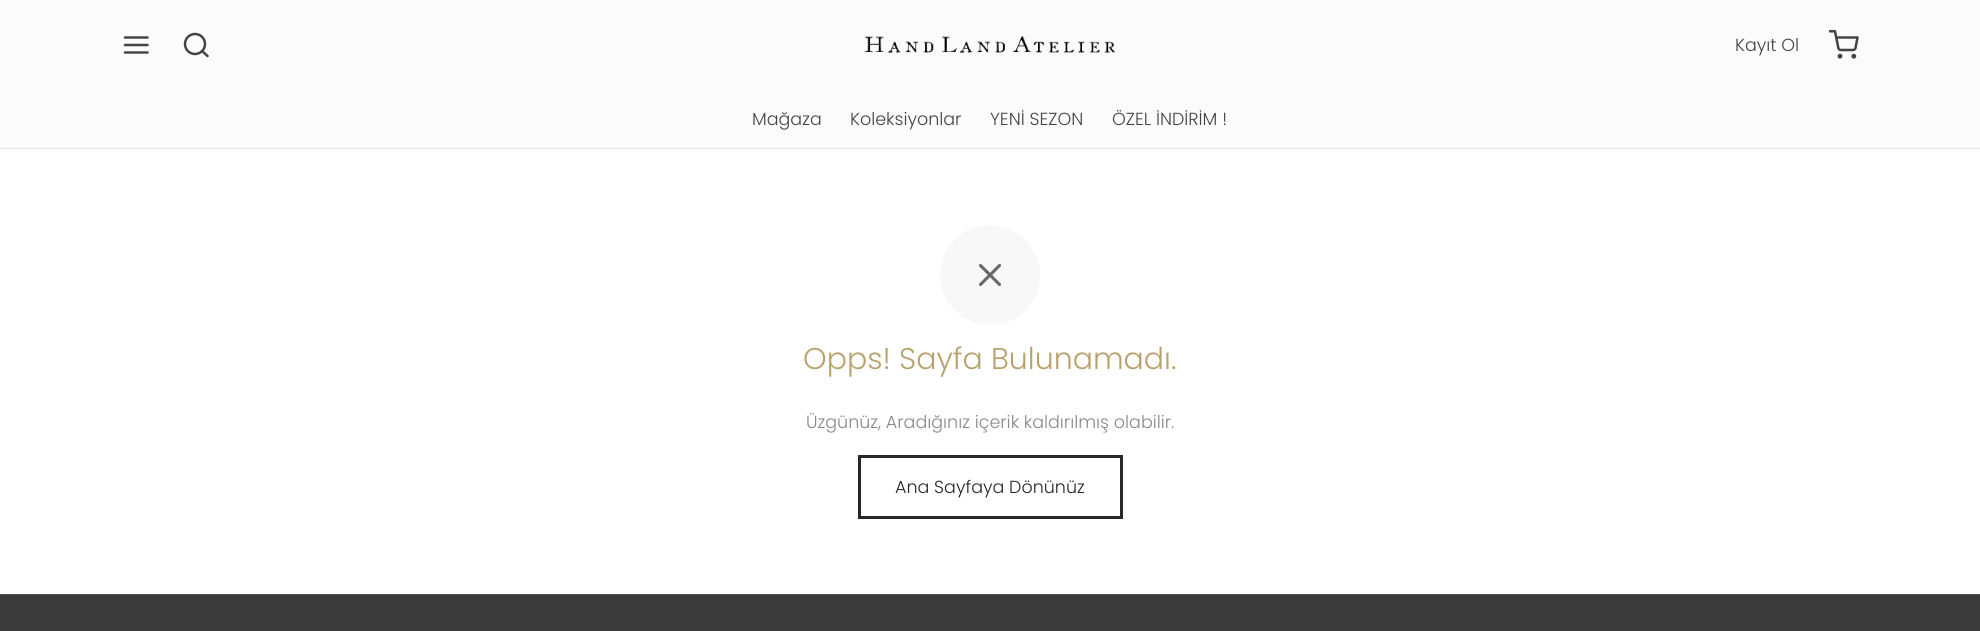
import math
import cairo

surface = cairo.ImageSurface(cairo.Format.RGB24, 1980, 631)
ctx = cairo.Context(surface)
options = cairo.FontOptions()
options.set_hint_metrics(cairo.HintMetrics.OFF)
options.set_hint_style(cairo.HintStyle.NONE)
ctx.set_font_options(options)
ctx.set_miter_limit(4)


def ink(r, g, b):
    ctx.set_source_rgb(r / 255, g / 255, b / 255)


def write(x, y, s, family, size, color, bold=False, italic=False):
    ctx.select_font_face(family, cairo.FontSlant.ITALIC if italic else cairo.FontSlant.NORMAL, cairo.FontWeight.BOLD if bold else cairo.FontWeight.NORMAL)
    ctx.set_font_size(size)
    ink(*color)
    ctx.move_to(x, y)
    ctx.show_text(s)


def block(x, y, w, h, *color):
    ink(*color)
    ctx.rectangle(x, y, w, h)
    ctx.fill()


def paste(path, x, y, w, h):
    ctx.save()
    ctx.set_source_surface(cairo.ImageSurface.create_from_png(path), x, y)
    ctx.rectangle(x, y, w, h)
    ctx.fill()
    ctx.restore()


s1 = dict(family="Poppins Light", size=17.5, color=(68, 68, 68))
s2 = dict(family="Poppins Light", size=30, color=(185, 161, 107))
s3 = dict(family="Poppins Light", size=17.5, color=(136, 136, 136))
s4 = dict(family="Poppins Light", size=17.5, color=(40, 40, 40))

ink(255, 255, 255)
ctx.paint()
block(0, 0, 1980, 148, 251, 251, 251)
ctx.new_path()
ctx.move_to(125, 45)
ctx.line_to(147.5, 45)
ctx.move_to(125, 37.5)
ctx.line_to(147.5, 37.5)
ctx.move_to(125, 52.5)
ctx.line_to(147.5, 52.5)
ink(68, 68, 68)
ctx.set_line_width(2.5)
ctx.set_line_cap(cairo.LineCap.ROUND)
ctx.set_line_join(cairo.LineJoin.ROUND)
ctx.stroke()
ctx.arc(195, 44, 10, 0, 2 * math.pi)
ctx.set_line_cap(cairo.LineCap.BUTT)
ctx.set_line_join(cairo.LineJoin.MITER)
ctx.stroke()
ctx.new_path()
ctx.move_to(207.5, 56)
ctx.line_to(202, 51)
ctx.set_line_cap(cairo.LineCap.ROUND)
ctx.set_line_join(cairo.LineJoin.ROUND)
ctx.stroke()
paste("pic1.png", 865, 36, 250, 17)
write(1735, 51, "Kayıt Ol", **s1)
paste("pic2.png", 1829, 30, 30, 29)
write(752, 125, "Mağaza", **s1)
write(850, 125, "Koleksiyonlar", **s1)
write(990, 125, "YENİ SEZON", **s1)
write(1112, 125, "ÖZEL İNDİRİM !", **s1)
block(0, 148, 1980, 1, 226, 226, 226)
ink(248, 248, 248)
ctx.new_path()
ctx.arc(990, 275, 50, 0, 2 * math.pi)
ctx.fill()
ctx.new_path()
ctx.move_to(999.5, 265.5)
ctx.line_to(980.5, 284.5)
ctx.move_to(980.5, 265.5)
ctx.line_to(999.5, 284.5)
ink(104, 104, 104)
ctx.set_line_width(3.1)
ctx.stroke()
write(803, 369, "Opps! Sayfa Bulunamadı.", **s2)
write(806, 428, "Üzgünüz, Aradığınız içerik kaldırılmış olabilir.", **s3)
ctx.rectangle(859.5, 456.5, 262, 61)
ink(40, 40, 40)
ctx.set_line_width(3)
ctx.set_line_cap(cairo.LineCap.BUTT)
ctx.set_line_join(cairo.LineJoin.MITER)
ctx.stroke()
write(895, 493, "Ana Sayfaya Dönünüz", **s4)
block(0, 595, 1980, 36, 58, 58, 58)
block(0, 594, 1980, 1, 78, 78, 78)
surface.write_to_png("screenshot.png")
